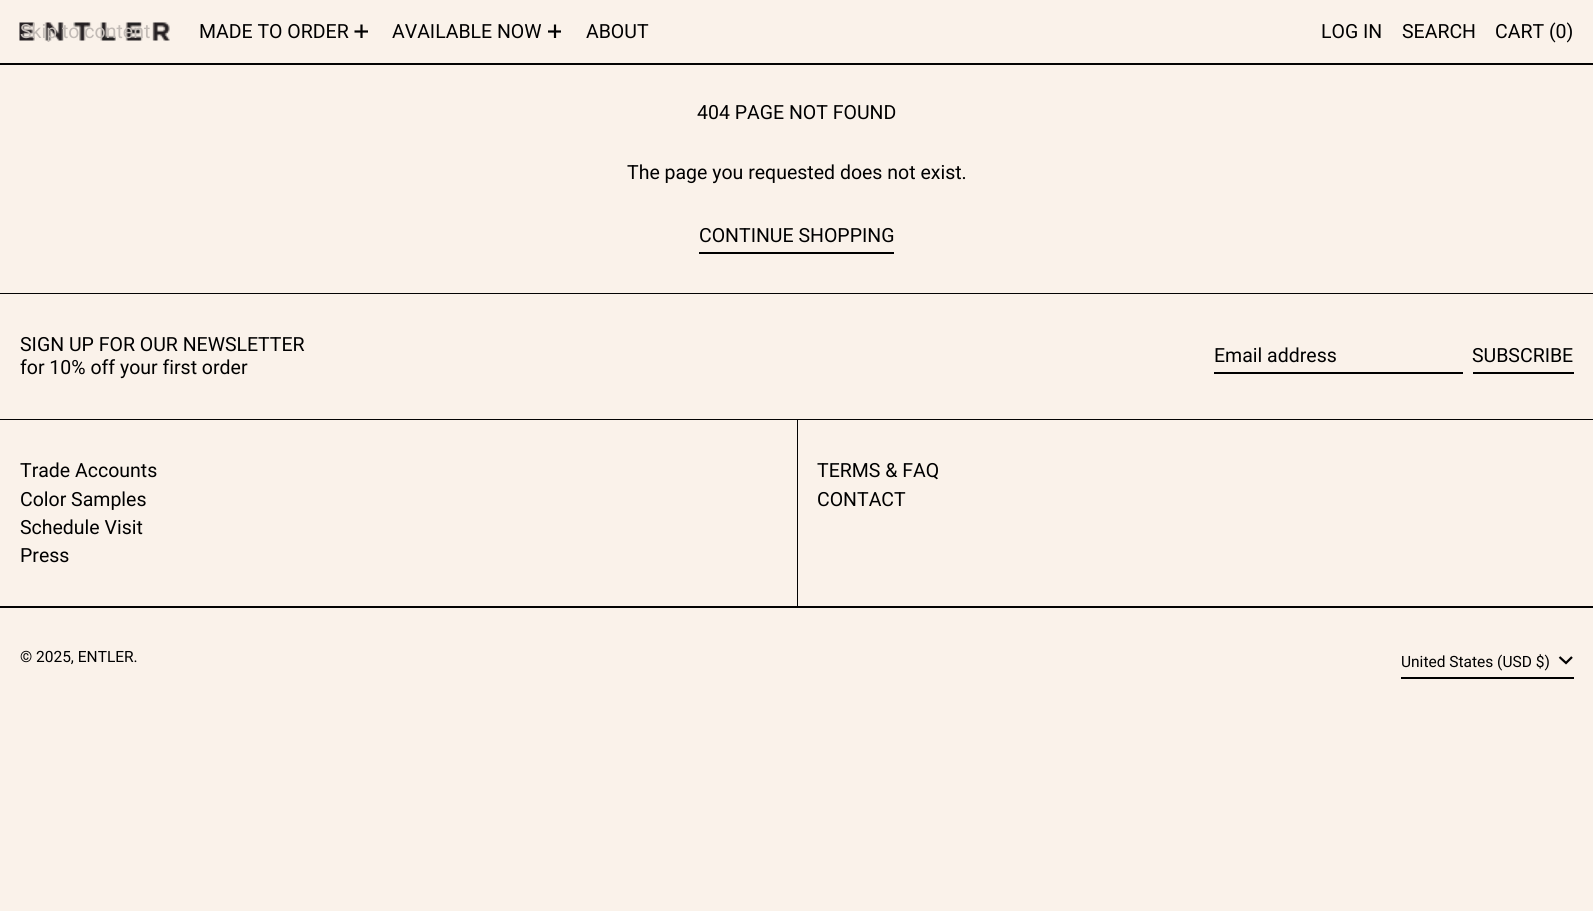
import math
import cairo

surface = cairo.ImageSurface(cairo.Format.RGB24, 1593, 911)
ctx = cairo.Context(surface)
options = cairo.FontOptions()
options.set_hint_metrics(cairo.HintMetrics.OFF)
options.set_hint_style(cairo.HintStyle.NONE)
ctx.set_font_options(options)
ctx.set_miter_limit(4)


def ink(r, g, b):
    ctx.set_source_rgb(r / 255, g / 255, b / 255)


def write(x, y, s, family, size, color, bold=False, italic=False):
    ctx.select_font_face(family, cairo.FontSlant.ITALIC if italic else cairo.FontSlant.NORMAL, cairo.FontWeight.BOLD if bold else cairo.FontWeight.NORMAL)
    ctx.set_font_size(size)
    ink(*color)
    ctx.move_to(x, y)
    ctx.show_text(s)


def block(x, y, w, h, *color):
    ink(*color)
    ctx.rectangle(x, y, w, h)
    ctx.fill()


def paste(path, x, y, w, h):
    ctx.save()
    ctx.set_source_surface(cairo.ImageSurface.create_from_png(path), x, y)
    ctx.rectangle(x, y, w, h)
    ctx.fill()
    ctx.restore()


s1 = dict(family="Roboto", size=19.5, color=(194, 187, 182))
s2 = dict(family="Roboto", size=19.5, color=(0, 0, 0))
s3 = dict(family="Roboto", size=15.5, color=(0, 0, 0))

ink(250, 242, 234)
ctx.paint()
paste("pic1.png", 19, 22, 151, 19)
write(20, 38, "Skip to content", **s1)
block(0, 63, 1593, 2, 3, 3, 3)
write(199, 38, "MADE TO ORDER", **s2)
ctx.new_path()
ctx.move_to(361.5, 24.5)
ctx.line_to(361.5, 38)
ctx.move_to(354.5, 31.5)
ctx.line_to(368, 31.5)
ctx.set_line_width(2.2)
ctx.stroke()
write(392, 38, "AVAILABLE NOW", **s2)
ctx.save()
ctx.rectangle(548, 24, 13, 15)
ctx.clip()
ctx.new_path()
ctx.move_to(555, 24.5)
ctx.line_to(555, 38)
ctx.move_to(548, 31.5)
ctx.line_to(561.5, 31.5)
ctx.stroke()
ctx.restore()
write(586, 38, "ABOUT", **s2)
write(1321, 38, "LOG IN", **s2)
write(1402, 38, "SEARCH", **s2)
write(1495, 38, "CART (0)", **s2)
block(0, 293, 1593, 1, 3, 3, 3)
write(697, 119, "404 PAGE NOT FOUND", **s2)
write(627, 179, "The page you requested does not exist.", **s2)
block(699, 252, 195, 2, 0, 0, 0)
write(699, 242, "CONTINUE SHOPPING", **s2)
block(0, 419, 1593, 1, 3, 3, 3)
write(20, 351, "SIGN UP FOR OUR NEWSLETTER", **s2)
write(20, 374, "for 10% off your first order", **s2)
block(1214, 372, 249, 2, 0, 0, 0)
write(1214, 362, "Email address", **s2)
block(1473, 372, 101, 2, 0, 0, 0)
write(1472, 362, "SUBSCRIBE", **s2)
block(0, 606, 1593, 2, 3, 3, 3)
block(797, 420, 1, 186, 3, 3, 3)
write(20, 477, "Trade Accounts", **s2)
write(20, 506, "Color Samples", **s2)
write(20, 534, "Schedule Visit", **s2)
write(20, 562, "Press", **s2)
write(817, 477, "TERMS & FAQ", **s2)
write(817, 506, "CONTACT", **s2)
write(20, 662, "© 2025, ENTLER.", **s3)
block(1401, 677, 173, 2, 0, 0, 0)
write(1401, 667, "United States (USD $)", **s3)
ctx.new_path()
ctx.move_to(1559.5, 657)
ctx.line_to(1566, 663)
ctx.line_to(1572, 657)
ctx.stroke()
surface.write_to_png("screenshot.png")
